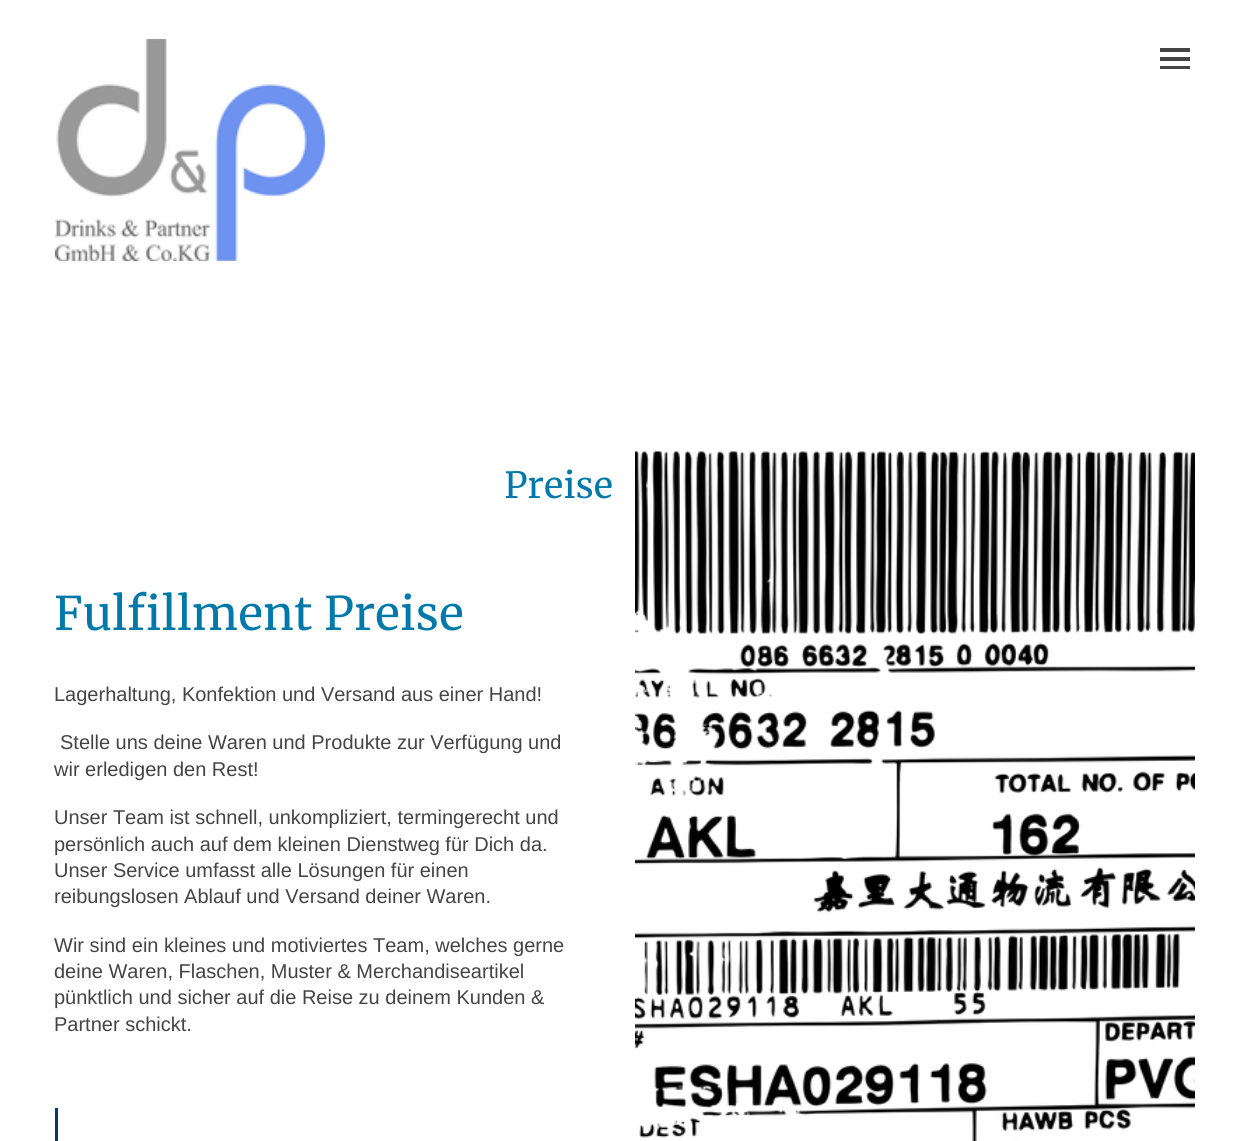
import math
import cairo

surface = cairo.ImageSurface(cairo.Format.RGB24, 1248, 1141)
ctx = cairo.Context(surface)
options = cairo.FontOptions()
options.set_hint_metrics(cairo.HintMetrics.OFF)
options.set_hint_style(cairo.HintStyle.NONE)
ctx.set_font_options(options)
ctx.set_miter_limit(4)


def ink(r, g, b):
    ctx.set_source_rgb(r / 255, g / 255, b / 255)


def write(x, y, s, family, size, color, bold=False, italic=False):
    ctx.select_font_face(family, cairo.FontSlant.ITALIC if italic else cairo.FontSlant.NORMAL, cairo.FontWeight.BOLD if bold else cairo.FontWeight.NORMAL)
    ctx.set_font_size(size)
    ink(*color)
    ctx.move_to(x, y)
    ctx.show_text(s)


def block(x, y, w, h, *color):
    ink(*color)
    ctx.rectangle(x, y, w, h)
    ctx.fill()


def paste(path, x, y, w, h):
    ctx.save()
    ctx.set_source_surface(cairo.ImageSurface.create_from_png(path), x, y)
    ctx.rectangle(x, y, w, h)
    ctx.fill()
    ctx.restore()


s1 = dict(family="Merriweather", size=36, color=(0, 121, 170))
s2 = dict(family="Merriweather", size=46.25, color=(0, 121, 170))
s3 = dict(family="Liberation Sans", size=20, color=(68, 68, 68))

ink(255, 255, 255)
ctx.paint()
paste("pic1.png", 55, 38, 270, 224)
block(1160, 48, 30, 4, 68, 68, 68)
block(1160, 57, 30, 4, 68, 68, 68)
block(1160, 66, 30, 3, 68, 68, 68)
write(504, 498, "Preise", **s1)
write(54, 630, "Fulfillment Preise", **s2)
write(54, 701, "Lagerhaltung, Konfektion und Versand aus einer Hand!", **s3)
write(60, 749, "Stelle uns deine Waren und Produkte zur Verfügung und", **s3)
write(54, 776, "wir erledigen den Rest!", **s3)
write(54, 824, "Unser Team ist schnell, unkompliziert, termingerecht und", **s3)
write(54, 851, "persönlich auch auf dem kleinen Dienstweg für Dich da.", **s3)
write(54, 877, "Unser Service umfasst alle Lösungen für einen", **s3)
write(54, 903, "reibungslosen Ablauf und Versand deiner Waren.", **s3)
write(54, 952, "Wir sind ein kleines und motiviertes Team, welches gerne", **s3)
write(54, 978, "deine Waren, Flaschen, Muster & Merchandiseartikel", **s3)
write(54, 1004, "pünktlich und sicher auf die Reise zu deinem Kunden &", **s3)
write(54, 1031, "Partner schickt.", **s3)
block(55, 1108, 3, 33, 2, 59, 108)
paste("pic2.png", 635, 451, 560, 690)
surface.write_to_png("screenshot.png")
